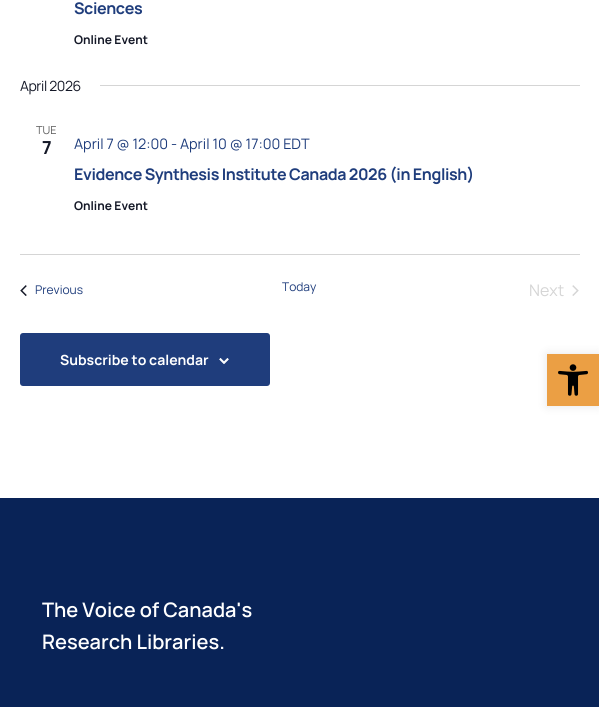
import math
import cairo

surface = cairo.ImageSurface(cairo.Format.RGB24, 599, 707)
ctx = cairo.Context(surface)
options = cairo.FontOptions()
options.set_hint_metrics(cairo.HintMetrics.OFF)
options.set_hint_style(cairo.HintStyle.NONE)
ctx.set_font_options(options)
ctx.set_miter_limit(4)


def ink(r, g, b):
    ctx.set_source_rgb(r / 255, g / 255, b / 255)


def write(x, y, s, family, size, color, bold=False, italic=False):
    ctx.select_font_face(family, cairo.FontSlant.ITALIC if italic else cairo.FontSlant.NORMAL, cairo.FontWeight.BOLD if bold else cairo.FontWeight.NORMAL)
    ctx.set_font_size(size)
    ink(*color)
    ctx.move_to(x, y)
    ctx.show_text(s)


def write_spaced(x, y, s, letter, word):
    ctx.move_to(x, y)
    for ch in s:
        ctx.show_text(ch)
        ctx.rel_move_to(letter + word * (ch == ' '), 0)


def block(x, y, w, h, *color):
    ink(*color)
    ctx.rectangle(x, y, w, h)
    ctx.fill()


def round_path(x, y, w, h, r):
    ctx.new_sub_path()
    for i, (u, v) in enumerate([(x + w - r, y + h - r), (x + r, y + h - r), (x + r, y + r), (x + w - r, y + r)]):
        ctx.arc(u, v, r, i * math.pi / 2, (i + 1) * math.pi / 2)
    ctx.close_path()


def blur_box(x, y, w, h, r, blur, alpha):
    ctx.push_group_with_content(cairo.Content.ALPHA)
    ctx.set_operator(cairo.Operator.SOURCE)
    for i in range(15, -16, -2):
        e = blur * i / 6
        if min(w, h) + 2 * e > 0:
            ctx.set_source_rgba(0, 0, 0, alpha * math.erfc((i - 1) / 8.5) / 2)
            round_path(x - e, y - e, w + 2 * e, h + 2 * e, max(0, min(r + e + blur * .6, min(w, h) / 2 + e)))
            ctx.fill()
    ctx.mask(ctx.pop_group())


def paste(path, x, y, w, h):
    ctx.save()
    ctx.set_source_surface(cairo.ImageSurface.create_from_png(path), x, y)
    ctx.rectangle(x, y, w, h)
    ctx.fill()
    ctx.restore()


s1 = dict(family="Manrope", size=12, color=(20, 24, 39), bold=True)
s2 = dict(family="Manrope", size=11, color=(93, 93, 93))
s3 = dict(family="Manrope", size=18, color=(20, 24, 39), bold=True)
s4 = dict(family="Manrope", size=14.4, color=(31, 61, 124))
s5 = dict(family="Manrope", size=12, color=(31, 61, 124))
s6 = dict(family="Manrope", size=16, color=(213, 213, 213))
s7 = dict(family="Manrope", size=14, color=(255, 255, 255), bold=True)
s8 = dict(family="Manrope SemiBold", size=20, color=(255, 255, 255))

ink(255, 255, 255)
ctx.paint()
ctx.select_font_face("Manrope", cairo.FontSlant.NORMAL, cairo.FontWeight.BOLD)
ctx.set_font_size(16)
ink(31, 61, 124)
write_spaced(74, 14, "Sciences", -0.4, 0)
write(74, 44, "Online Event", **s1)
ctx.select_font_face("Manrope")
ctx.set_font_size(14)
write_spaced(20, 91, "April 2026", -0.4, 0)
block(100, 85, 480, 1, 213, 213, 213)
write(36, 134, "TUE", **s2)
write(42, 154, "7", **s3)
write(74, 149, "April 7 @ 12:00 - April 10 @ 17:00 EDT", **s4)
ctx.select_font_face("Manrope", cairo.FontSlant.NORMAL, cairo.FontWeight.BOLD)
ctx.set_font_size(16)
write_spaced(74, 180, "Evidence Synthesis Institute Canada 2026 (in English)", -0.4, 0)
write(74, 210, "Online Event", **s1)
block(20, 254, 560, 1, 213, 213, 213)
paste("pic1.png", 20, 285, 7, 11)
write(35, 294, "Previous", **s5)
write(282, 291, "Today", **s5)
write(529, 296, "Next", **s6)
paste("pic2.png", 572, 285, 7, 11)
ink(31, 61, 124)
round_path(21, 334, 248, 51, 2)
ctx.fill_preserve()
ctx.stroke()
write(60, 365, "Subscribe to calendar", **s7)
paste("pic3.png", 219, 358, 10, 6)
ink(0, 0, 0)
blur_box(547, 354, 52, 52, 0, 5, 0.1)
block(547, 354, 52, 52, 235, 159, 68)
paste("pic4.png", 558, 364, 30, 32)
block(0, 498, 599, 209, 9, 35, 87)
write(42, 617, "The Voice of Canada's", **s8)
write(42, 649, "Research Libraries.", **s8)
surface.write_to_png("screenshot.png")
